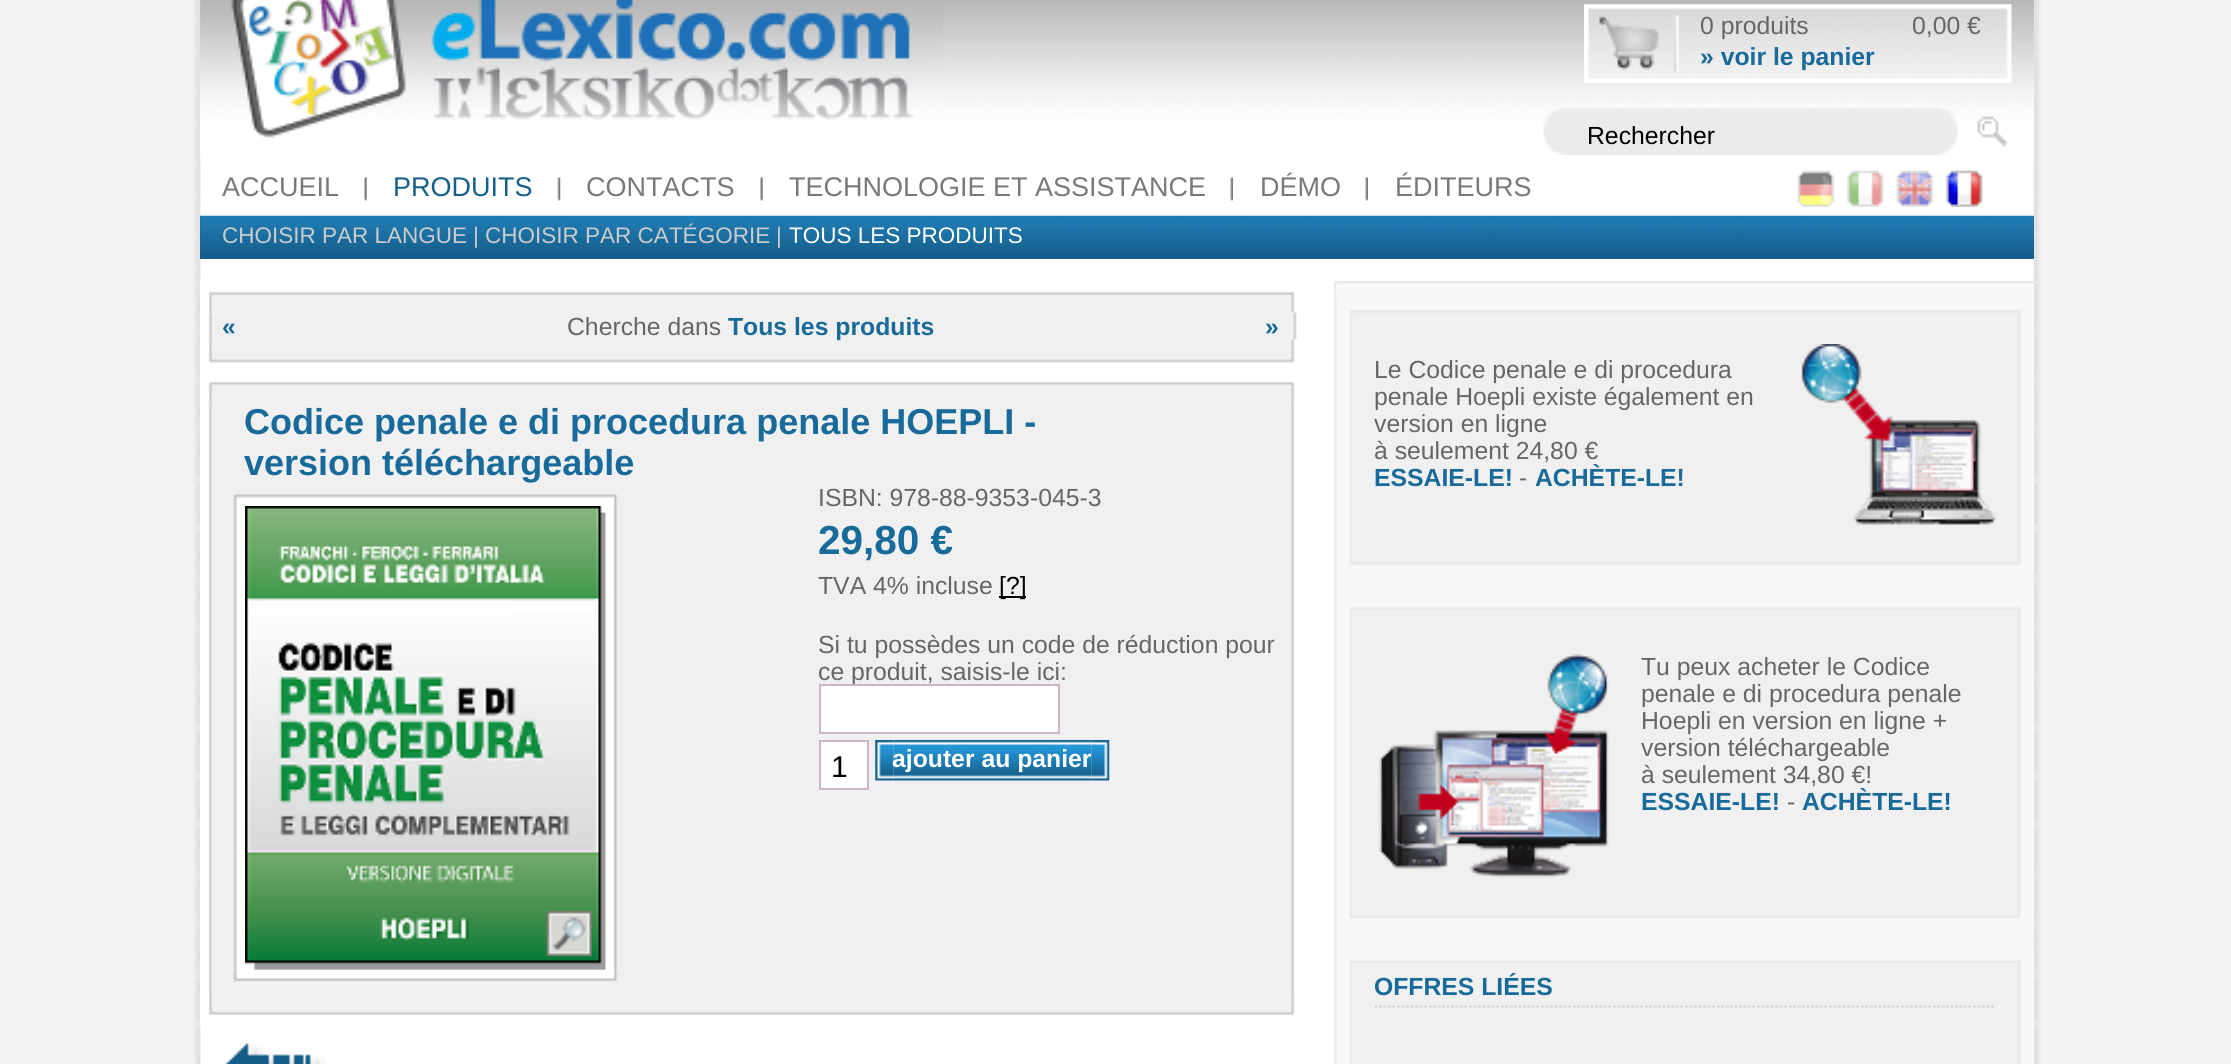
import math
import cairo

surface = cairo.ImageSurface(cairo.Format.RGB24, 2231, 1064)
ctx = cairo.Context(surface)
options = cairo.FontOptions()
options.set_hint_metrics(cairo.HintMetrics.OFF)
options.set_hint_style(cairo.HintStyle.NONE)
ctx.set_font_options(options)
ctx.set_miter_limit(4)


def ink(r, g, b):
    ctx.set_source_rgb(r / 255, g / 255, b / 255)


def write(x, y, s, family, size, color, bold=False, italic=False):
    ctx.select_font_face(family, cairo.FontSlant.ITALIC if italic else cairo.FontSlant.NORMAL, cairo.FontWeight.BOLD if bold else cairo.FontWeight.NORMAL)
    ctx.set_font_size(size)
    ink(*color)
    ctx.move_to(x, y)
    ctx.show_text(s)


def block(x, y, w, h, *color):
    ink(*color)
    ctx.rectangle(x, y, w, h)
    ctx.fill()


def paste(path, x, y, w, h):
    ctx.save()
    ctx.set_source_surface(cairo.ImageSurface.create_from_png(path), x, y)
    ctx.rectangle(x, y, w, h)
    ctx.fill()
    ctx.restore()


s1 = dict(family="Liberation Sans", size=24.75, color=(102, 102, 102))
s2 = dict(family="Liberation Sans", size=24.75, color=(24, 106, 154), bold=True)
s3 = dict(family="Liberation Sans", size=24.75, color=(0, 0, 0))
s4 = dict(family="Liberation Sans", size=27, color=(121, 121, 121))
s5 = dict(family="Liberation Sans", size=27, color=(20, 95, 140))
s6 = dict(family="Liberation Sans", size=22.5, color=(204, 204, 204))
s7 = dict(family="Liberation Sans", size=22.5, color=(255, 255, 255))
s8 = dict(family="Liberation Sans", size=36, color=(24, 106, 154), bold=True)
s9 = dict(family="Liberation Sans", size=40.5, color=(24, 106, 154), bold=True)
s10 = dict(family="Liberation Sans", size=30, color=(0, 0, 0))
s11 = dict(family="Liberation Sans", size=24.75, color=(255, 255, 255), bold=True)

ink(243, 243, 243)
ctx.paint()
paste("pic1.png", 193, 0, 1848, 1064)
paste("pic2.png", 200, 0, 1834, 157)
paste("pic3.png", 200, 0, 743, 138)
paste("pic4.png", 1584, 4, 428, 79)
write(1700, 34, "0 produits", **s1)
write(1912, 34, "0,00 €", **s1)
write(1700, 65, "» voir le panier", **s2)
paste("pic5.png", 1543, 108, 415, 47)
write(1587, 144, "Rechercher", **s3)
paste("pic6.png", 1977, 116, 31, 31)
paste("pic7.png", 364, 177, 3, 24)
write(222, 196, "ACCUEIL", **s4)
paste("pic8.png", 557, 177, 4, 24)
write(393, 196, "PRODUITS", **s5)
paste("pic7.png", 760, 177, 3, 24)
write(586, 196, "CONTACTS", **s4)
paste("pic9.png", 1230, 177, 3, 24)
write(789, 196, "TECHNOLOGIE ET ASSISTANCE", **s4)
paste("pic9.png", 1365, 177, 3, 24)
write(1260, 196, "DÉMO", **s4)
write(1395, 196, "ÉDITEURS", **s4)
paste("pic10.png", 1797, 170, 38, 37)
paste("pic11.png", 1846, 170, 38, 37)
paste("pic12.png", 1896, 170, 38, 37)
paste("pic13.png", 1945, 170, 38, 37)
block(200, 216, 1834, 43, 21, 94, 139)
paste("pic14.png", 200, 215, 1834, 36)
write(222, 243, "CHOISIR PAR LANGUE", **s6)
write(473, 243, "| CHOISIR PAR CATÉGORIE", **s6)
write(776, 243, "|", **s6)
write(789, 243, "TOUS LES PRODUITS", **s7)
paste("pic15.png", 196, 281, 1842, 783)
paste("pic16.png", 200, 281, 1095, 32)
paste("pic17.png", 200, 312, 1097, 28)
write(222, 335, "«", **s2)
write(567, 335, "Cherche dans", **s1)
paste("pic18.png", 200, 339, 1097, 32)
write(728, 335, "Tous les produits", **s2)
write(1265, 335, "»", **s2)
paste("pic19.png", 200, 371, 1095, 32)
paste("pic20.png", 200, 402, 1095, 590)
write(244, 434, "Codice penale e di procedura penale HOEPLI -", **s8)
write(244, 475, "version téléchargeable", **s8)
paste("pic21.png", 605, 483, 12, 487)
paste("pic22.png", 222, 483, 406, 23)
paste("pic23.png", 223, 494, 14, 12)
paste("pic24.png", 613, 483, 15, 23)
paste("pic25.png", 233, 506, 373, 464)
paste("pic28.png", 222, 969, 406, 23)
paste("pic26.png", 245, 506, 361, 464)
paste("pic27.png", 546, 911, 46, 45)
paste("pic29.png", 223, 969, 14, 13)
paste("pic30.png", 613, 969, 15, 13)
write(818, 506, "ISBN: 978-88-9353-045-3", **s1)
write(818, 554, "29,80 €", **s9)
write(818, 594, "TVA 4% incluse", **s1)
block(999, 596, 27, 2, 0, 0, 0)
write(999, 594, "[?]", **s3)
write(818, 653, "Si tu possèdes un code de réduction pour", **s1)
write(818, 680, "ce produit, saisis-le ici:", **s1)
ink(255, 255, 255)
ctx.rectangle(820, 685, 239, 48)
ctx.fill_preserve()
ink(207, 179, 198)
ctx.stroke()
ink(255, 255, 255)
ctx.rectangle(820, 741, 48, 48)
ctx.fill_preserve()
ink(207, 179, 198)
ctx.stroke()
write(831, 777, "1", **s10)
paste("pic31.png", 875, 740, 19, 41)
paste("pic32.png", 893, 740, 199, 41)
write(892, 767, "ajouter au panier", **s11)
paste("pic33.png", 1091, 740, 19, 41)
paste("pic34.png", 200, 992, 1095, 31)
paste("pic35.png", 224, 1043, 102, 21)
paste("pic36.png", 1336, 281, 698, 18)
paste("pic37.png", 1349, 299, 685, 23)
paste("pic38.png", 1349, 321, 685, 230)
write(1374, 378, "Le Codice penale e di procedura", **s1)
write(1374, 405, "penale Hoepli existe également en", **s1)
write(1374, 432, "version en ligne", **s1)
write(1374, 459, "à seulement 24,80 €", **s1)
write(1374, 486, "ESSAIE-LE!", **s2)
write(1519, 486, "-", **s1)
write(1535, 486, "ACHÈTE-LE!", **s2)
paste("pic39.png", 1801, 344, 195, 181)
paste("pic40.png", 1349, 551, 685, 22)
paste("pic37.png", 1349, 596, 685, 23)
paste("pic41.png", 1349, 618, 685, 287)
paste("pic42.png", 1379, 654, 230, 224)
write(1641, 675, "Tu peux acheter le Codice", **s1)
write(1641, 702, "penale e di procedura penale", **s1)
write(1641, 729, "Hoepli en version en ligne +", **s1)
write(1641, 756, "version téléchargeable", **s1)
write(1641, 783, "à seulement 34,80 €!", **s1)
write(1641, 810, "ESSAIE-LE!", **s2)
write(1787, 810, "-", **s1)
write(1802, 810, "ACHÈTE-LE!", **s2)
paste("pic43.png", 1349, 904, 685, 22)
paste("pic44.png", 1349, 949, 685, 23)
paste("pic45.png", 1349, 972, 685, 92)
write(1374, 995, "OFFRES LIÉES", **s2)
paste("pic46.png", 1374, 1005, 620, 4)
surface.write_to_png("screenshot.png")
